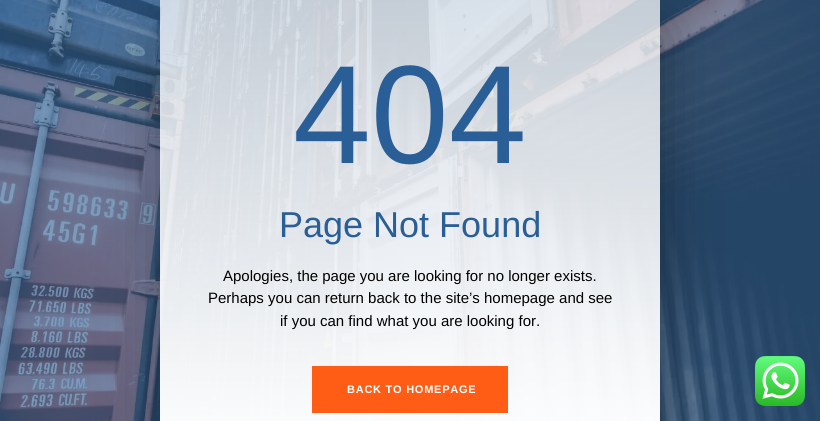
import math
import cairo

surface = cairo.ImageSurface(cairo.Format.RGB24, 820, 421)
ctx = cairo.Context(surface)
options = cairo.FontOptions()
options.set_hint_metrics(cairo.HintMetrics.OFF)
options.set_hint_style(cairo.HintStyle.NONE)
ctx.set_font_options(options)
ctx.set_miter_limit(4)


def ink(r, g, b):
    ctx.set_source_rgb(r / 255, g / 255, b / 255)


def write(x, y, s, family, size, color, bold=False, italic=False):
    ctx.select_font_face(family, cairo.FontSlant.ITALIC if italic else cairo.FontSlant.NORMAL, cairo.FontWeight.BOLD if bold else cairo.FontWeight.NORMAL)
    ctx.set_font_size(size)
    ink(*color)
    ctx.move_to(x, y)
    ctx.show_text(s)


def write_spaced(x, y, s, letter, word):
    ctx.move_to(x, y)
    for ch in s:
        ctx.show_text(ch)
        ctx.rel_move_to(letter + word * (ch == ' '), 0)


def block(x, y, w, h, *color):
    ink(*color)
    ctx.rectangle(x, y, w, h)
    ctx.fill()


def round_path(x, y, w, h, r):
    ctx.new_sub_path()
    for i, (u, v) in enumerate([(x + w - r, y + h - r), (x + r, y + h - r), (x + r, y + r), (x + w - r, y + r)]):
        ctx.arc(u, v, r, i * math.pi / 2, (i + 1) * math.pi / 2)
    ctx.close_path()


def blur_box(x, y, w, h, r, blur, alpha):
    ctx.push_group_with_content(cairo.Content.ALPHA)
    ctx.set_operator(cairo.Operator.SOURCE)
    for i in range(15, -16, -2):
        e = blur * i / 6
        if min(w, h) + 2 * e > 0:
            ctx.set_source_rgba(0, 0, 0, alpha * math.erfc((i - 1) / 8.5) / 2)
            round_path(x - e, y - e, w + 2 * e, h + 2 * e, max(0, min(r + e + blur * .6, min(w, h) / 2 + e)))
            ctx.fill()
    ctx.mask(ctx.pop_group())


def paste(path, x, y, w, h):
    ctx.save()
    ctx.set_source_surface(cairo.ImageSurface.create_from_png(path), x, y)
    ctx.rectangle(x, y, w, h)
    ctx.fill()
    ctx.restore()


s1 = dict(family="Liberation Sans", size=140, color=(41, 94, 150))
s2 = dict(family="Liberation Sans", size=36, color=(41, 94, 150))
s3 = dict(family="Liberation Sans", size=15, color=(0, 0, 0))

ink(255, 255, 255)
ctx.paint()
paste("pic1.png", 0, 0, 820, 421)
ctx.save()
ctx.set_fill_rule(cairo.FillRule.EVEN_ODD)
ctx.new_path()
ctx.move_to(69, 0)
ctx.line_to(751, 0)
ctx.line_to(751, 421)
ctx.line_to(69, 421)
ctx.close_path()
ctx.move_to(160, 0)
ctx.line_to(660, 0)
ctx.line_to(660, 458)
ctx.line_to(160, 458)
ctx.close_path()
ctx.clip()
ink(0, 0, 0)
blur_box(160, 30, 500, 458, 0, 30, 0.35)
ctx.restore()
write(293, 163, "404", **s1)
write(279, 237, "Page Not Found", **s2)
write(223, 281, "Apologies, the page you are looking for no longer exists.", **s3)
write(208, 303, "Perhaps you can return back to the site’s homepage and see", **s3)
write(280, 326, "if you can find what you are looking for.", **s3)
block(312, 366, 196, 47, 255, 93, 21)
ctx.select_font_face("Liberation Sans", cairo.FontSlant.NORMAL, cairo.FontWeight.BOLD)
ctx.set_font_size(11)
ink(255, 255, 255)
write_spaced(347, 393, "BACK TO HOMEPAGE", 0.75, 0)
paste("pic2.png", 755, 356, 50, 50)
surface.write_to_png("screenshot.png")
